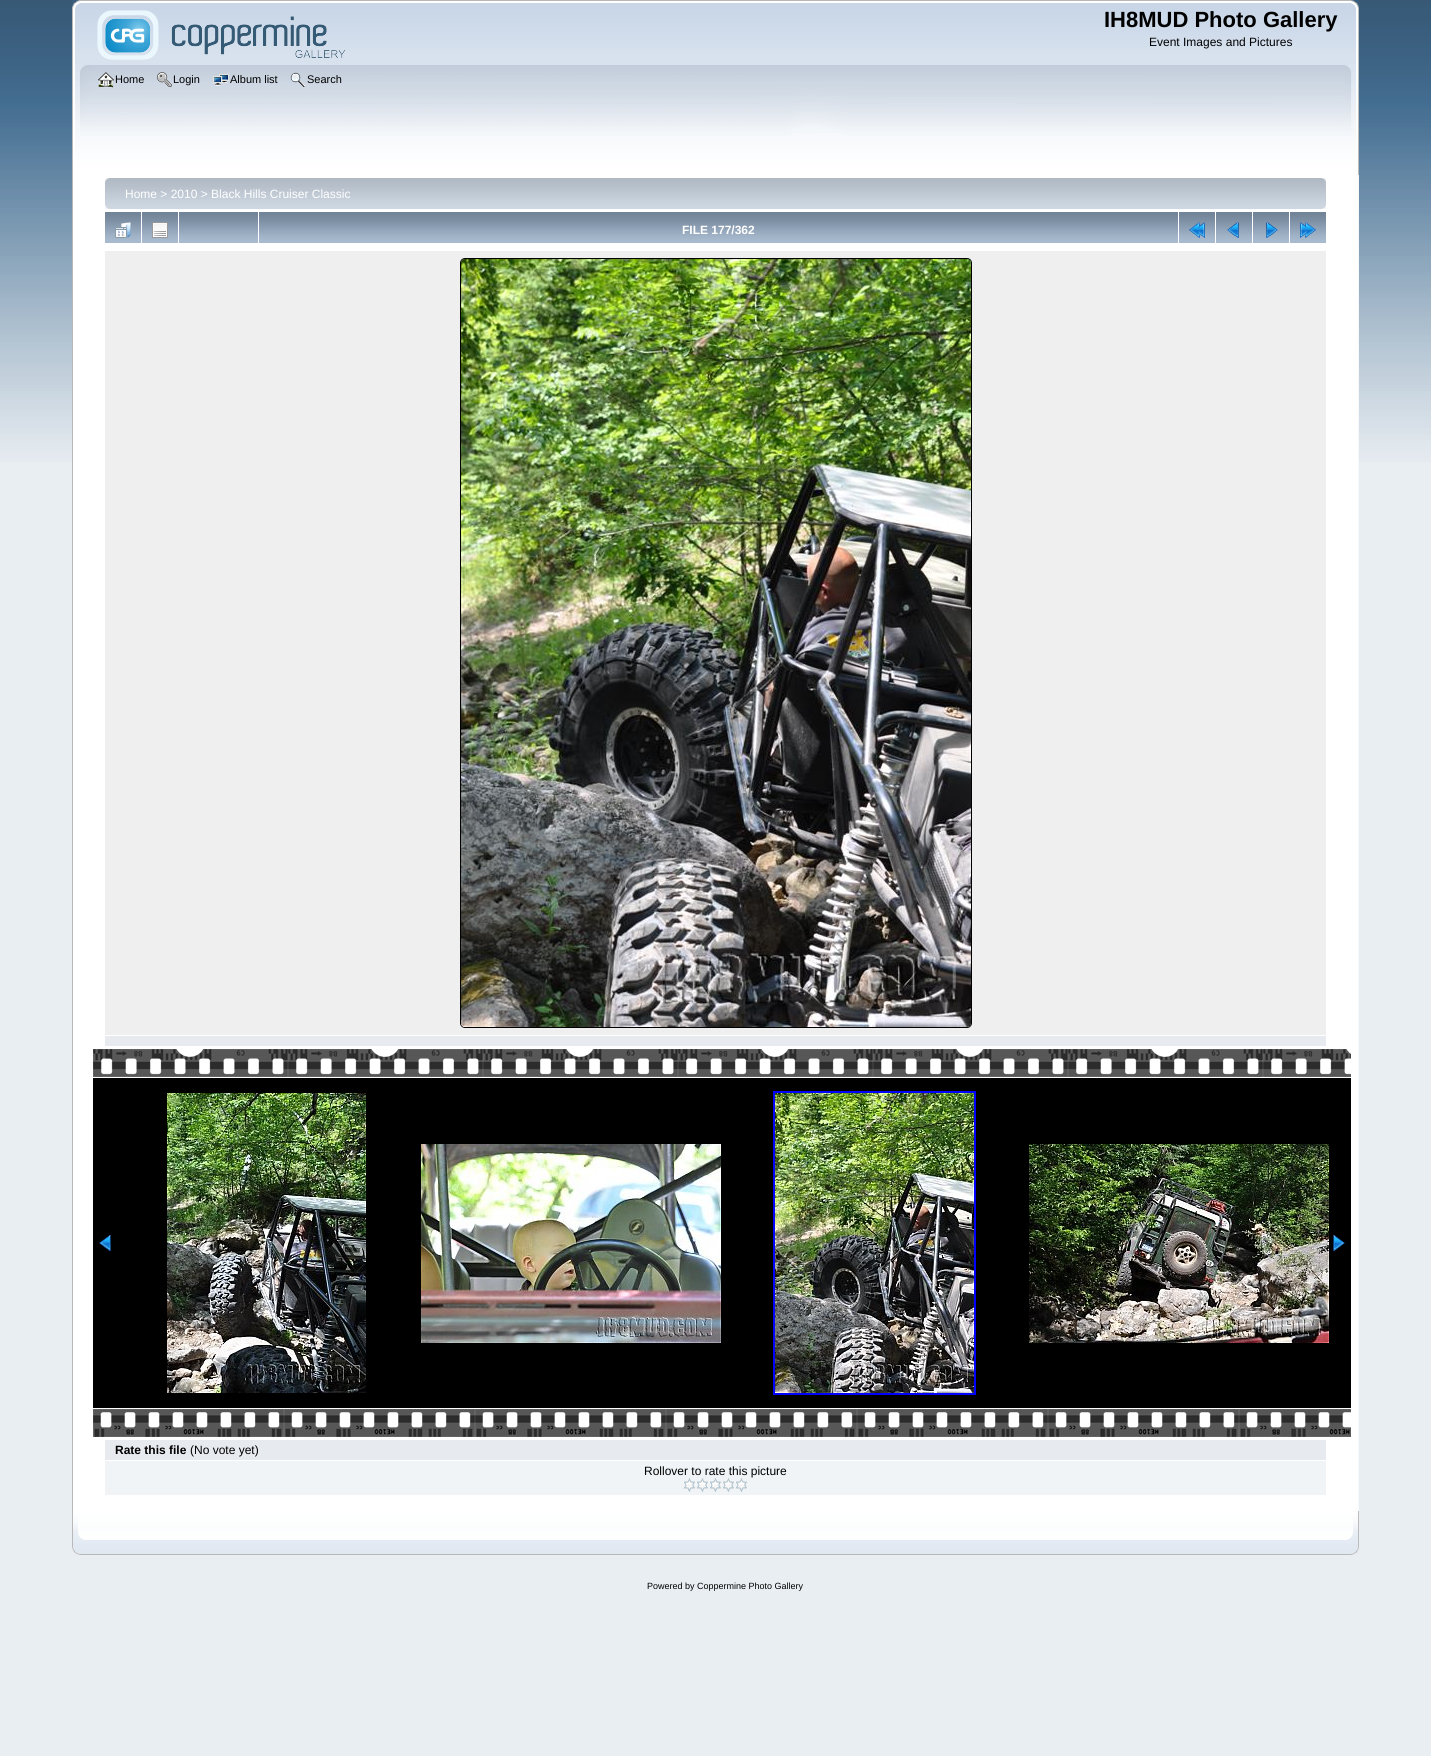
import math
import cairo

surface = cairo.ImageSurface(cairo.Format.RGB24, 1431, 1756)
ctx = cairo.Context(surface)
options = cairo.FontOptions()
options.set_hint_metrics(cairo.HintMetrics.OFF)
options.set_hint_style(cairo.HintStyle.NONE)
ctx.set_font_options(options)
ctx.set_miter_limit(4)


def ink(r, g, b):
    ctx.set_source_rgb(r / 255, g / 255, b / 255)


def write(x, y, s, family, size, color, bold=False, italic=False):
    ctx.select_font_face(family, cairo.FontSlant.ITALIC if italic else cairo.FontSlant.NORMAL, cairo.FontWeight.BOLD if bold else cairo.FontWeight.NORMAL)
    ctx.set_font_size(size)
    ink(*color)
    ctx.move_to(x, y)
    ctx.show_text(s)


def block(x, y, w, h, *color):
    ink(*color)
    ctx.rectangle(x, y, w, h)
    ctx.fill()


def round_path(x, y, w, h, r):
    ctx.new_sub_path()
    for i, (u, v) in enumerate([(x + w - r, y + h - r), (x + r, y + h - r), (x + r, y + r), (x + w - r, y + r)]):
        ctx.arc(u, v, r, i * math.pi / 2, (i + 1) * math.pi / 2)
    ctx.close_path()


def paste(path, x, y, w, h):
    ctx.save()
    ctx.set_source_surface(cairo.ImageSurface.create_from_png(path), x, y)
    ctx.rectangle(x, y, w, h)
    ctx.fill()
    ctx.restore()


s1 = dict(family="Liberation Sans", size=22, color=(0, 0, 0), bold=True)
s2 = dict(family="Liberation Sans", size=12, color=(0, 0, 0))
s3 = dict(family="Liberation Sans", size=11, color=(0, 0, 0))
s4 = dict(family="Liberation Sans", size=12, color=(255, 255, 255))
s5 = dict(family="Liberation Sans", size=12, color=(255, 255, 255), bold=True)
s6 = dict(family="Liberation Sans", size=12, color=(0, 0, 0), bold=True)
s7 = dict(family="Liberation Sans", size=9, color=(0, 0, 0))

ink(233, 238, 242)
ctx.paint()
paste("pic1.png", 0, 0, 1431, 462)
paste("pic2.png", 72, 0, 1279, 65)
paste("pic3.png", 1351, 0, 8, 65)
paste("pic4.png", 97, 10, 248, 50)
write(1104, 27, "IH8MUD Photo Gallery", **s1)
write(1149, 46, "Event Images and Pictures", **s2)
paste("pic5.png", 72, 65, 1273, 110)
paste("pic6.png", 1345, 65, 14, 110)
paste("pic7.png", 98, 72, 16, 16)
write(115, 83, "Home", **s3)
paste("pic8.png", 157, 72, 15, 15)
write(173, 83, "Login", **s3)
paste("pic9.png", 213, 74, 16, 12)
write(230, 83, "Album list", **s3)
paste("pic10.png", 290, 72, 16, 15)
write(307, 83, "Search", **s3)
block(73, 175, 1285, 1336, 255, 255, 255)
block(72, 175, 1, 1336, 183, 183, 183)
block(1358, 175, 1, 1336, 248, 248, 248)
paste("pic11.png", 105, 178, 1216, 31)
paste("pic12.png", 1321, 178, 5, 31)
write(125, 198, "Home > 2010 > Black Hills Cruiser Classic", **s4)
paste("pic13.png", 105, 212, 36, 31)
paste("pic14.png", 115, 222, 16, 16)
paste("pic13.png", 142, 212, 36, 31)
paste("pic15.png", 152, 222, 16, 16)
paste("pic16.png", 179, 212, 79, 31)
paste("pic17.png", 259, 212, 919, 31)
write(682, 234, "FILE 177/362", **s5)
paste("pic13.png", 1179, 212, 36, 31)
paste("pic18.png", 1189, 222, 16, 16)
paste("pic13.png", 1216, 212, 36, 31)
paste("pic19.png", 1227, 222, 12, 16)
paste("pic13.png", 1253, 212, 36, 31)
paste("pic20.png", 1266, 222, 12, 16)
paste("pic13.png", 1290, 212, 36, 31)
paste("pic21.png", 1300, 222, 16, 16)
block(105, 251, 1221, 784, 239, 239, 239)
round_path(460.5, 258.5, 511, 769, 4.5)
ink(0, 0, 0)
ctx.set_line_width(1)
ctx.stroke()
paste("pic22.png", 461, 259, 510, 768)
block(105, 1036, 1221, 10, 231, 234, 239)
paste("pic23.png", 93, 1049, 1258, 28)
block(93, 1078, 1258, 330, 0, 0, 0)
paste("pic24.png", 99, 1235, 12, 16)
paste("pic25.png", 167, 1093, 199, 300)
paste("pic26.png", 421, 1144, 300, 199)
ctx.rectangle(774, 1092, 201, 302)
ink(0, 0, 255)
ctx.set_line_width(2)
ctx.stroke()
paste("pic27.png", 775, 1093, 199, 300)
paste("pic28.png", 1029, 1144, 300, 199)
paste("pic29.png", 1333, 1235, 12, 16)
paste("pic30.png", 93, 1409, 1258, 28)
block(105, 1440, 1221, 20, 231, 234, 239)
write(115, 1454, "Rate this file", **s6)
write(190, 1454, "(No vote yet)", **s2)
block(105, 1461, 1221, 34, 240, 244, 247)
write(644, 1475, "Rollover to rate this picture", **s2)
paste("pic31.png", 683, 1478, 13, 14)
paste("pic31.png", 696, 1478, 13, 14)
paste("pic31.png", 709, 1478, 13, 14)
paste("pic31.png", 722, 1478, 13, 14)
paste("pic31.png", 735, 1478, 13, 14)
paste("pic32.png", 72, 1511, 1274, 44)
paste("pic33.png", 1346, 1511, 13, 44)
write(647, 1589, "Powered by Coppermine Photo Gallery", **s7)
surface.write_to_png("screenshot.png")
